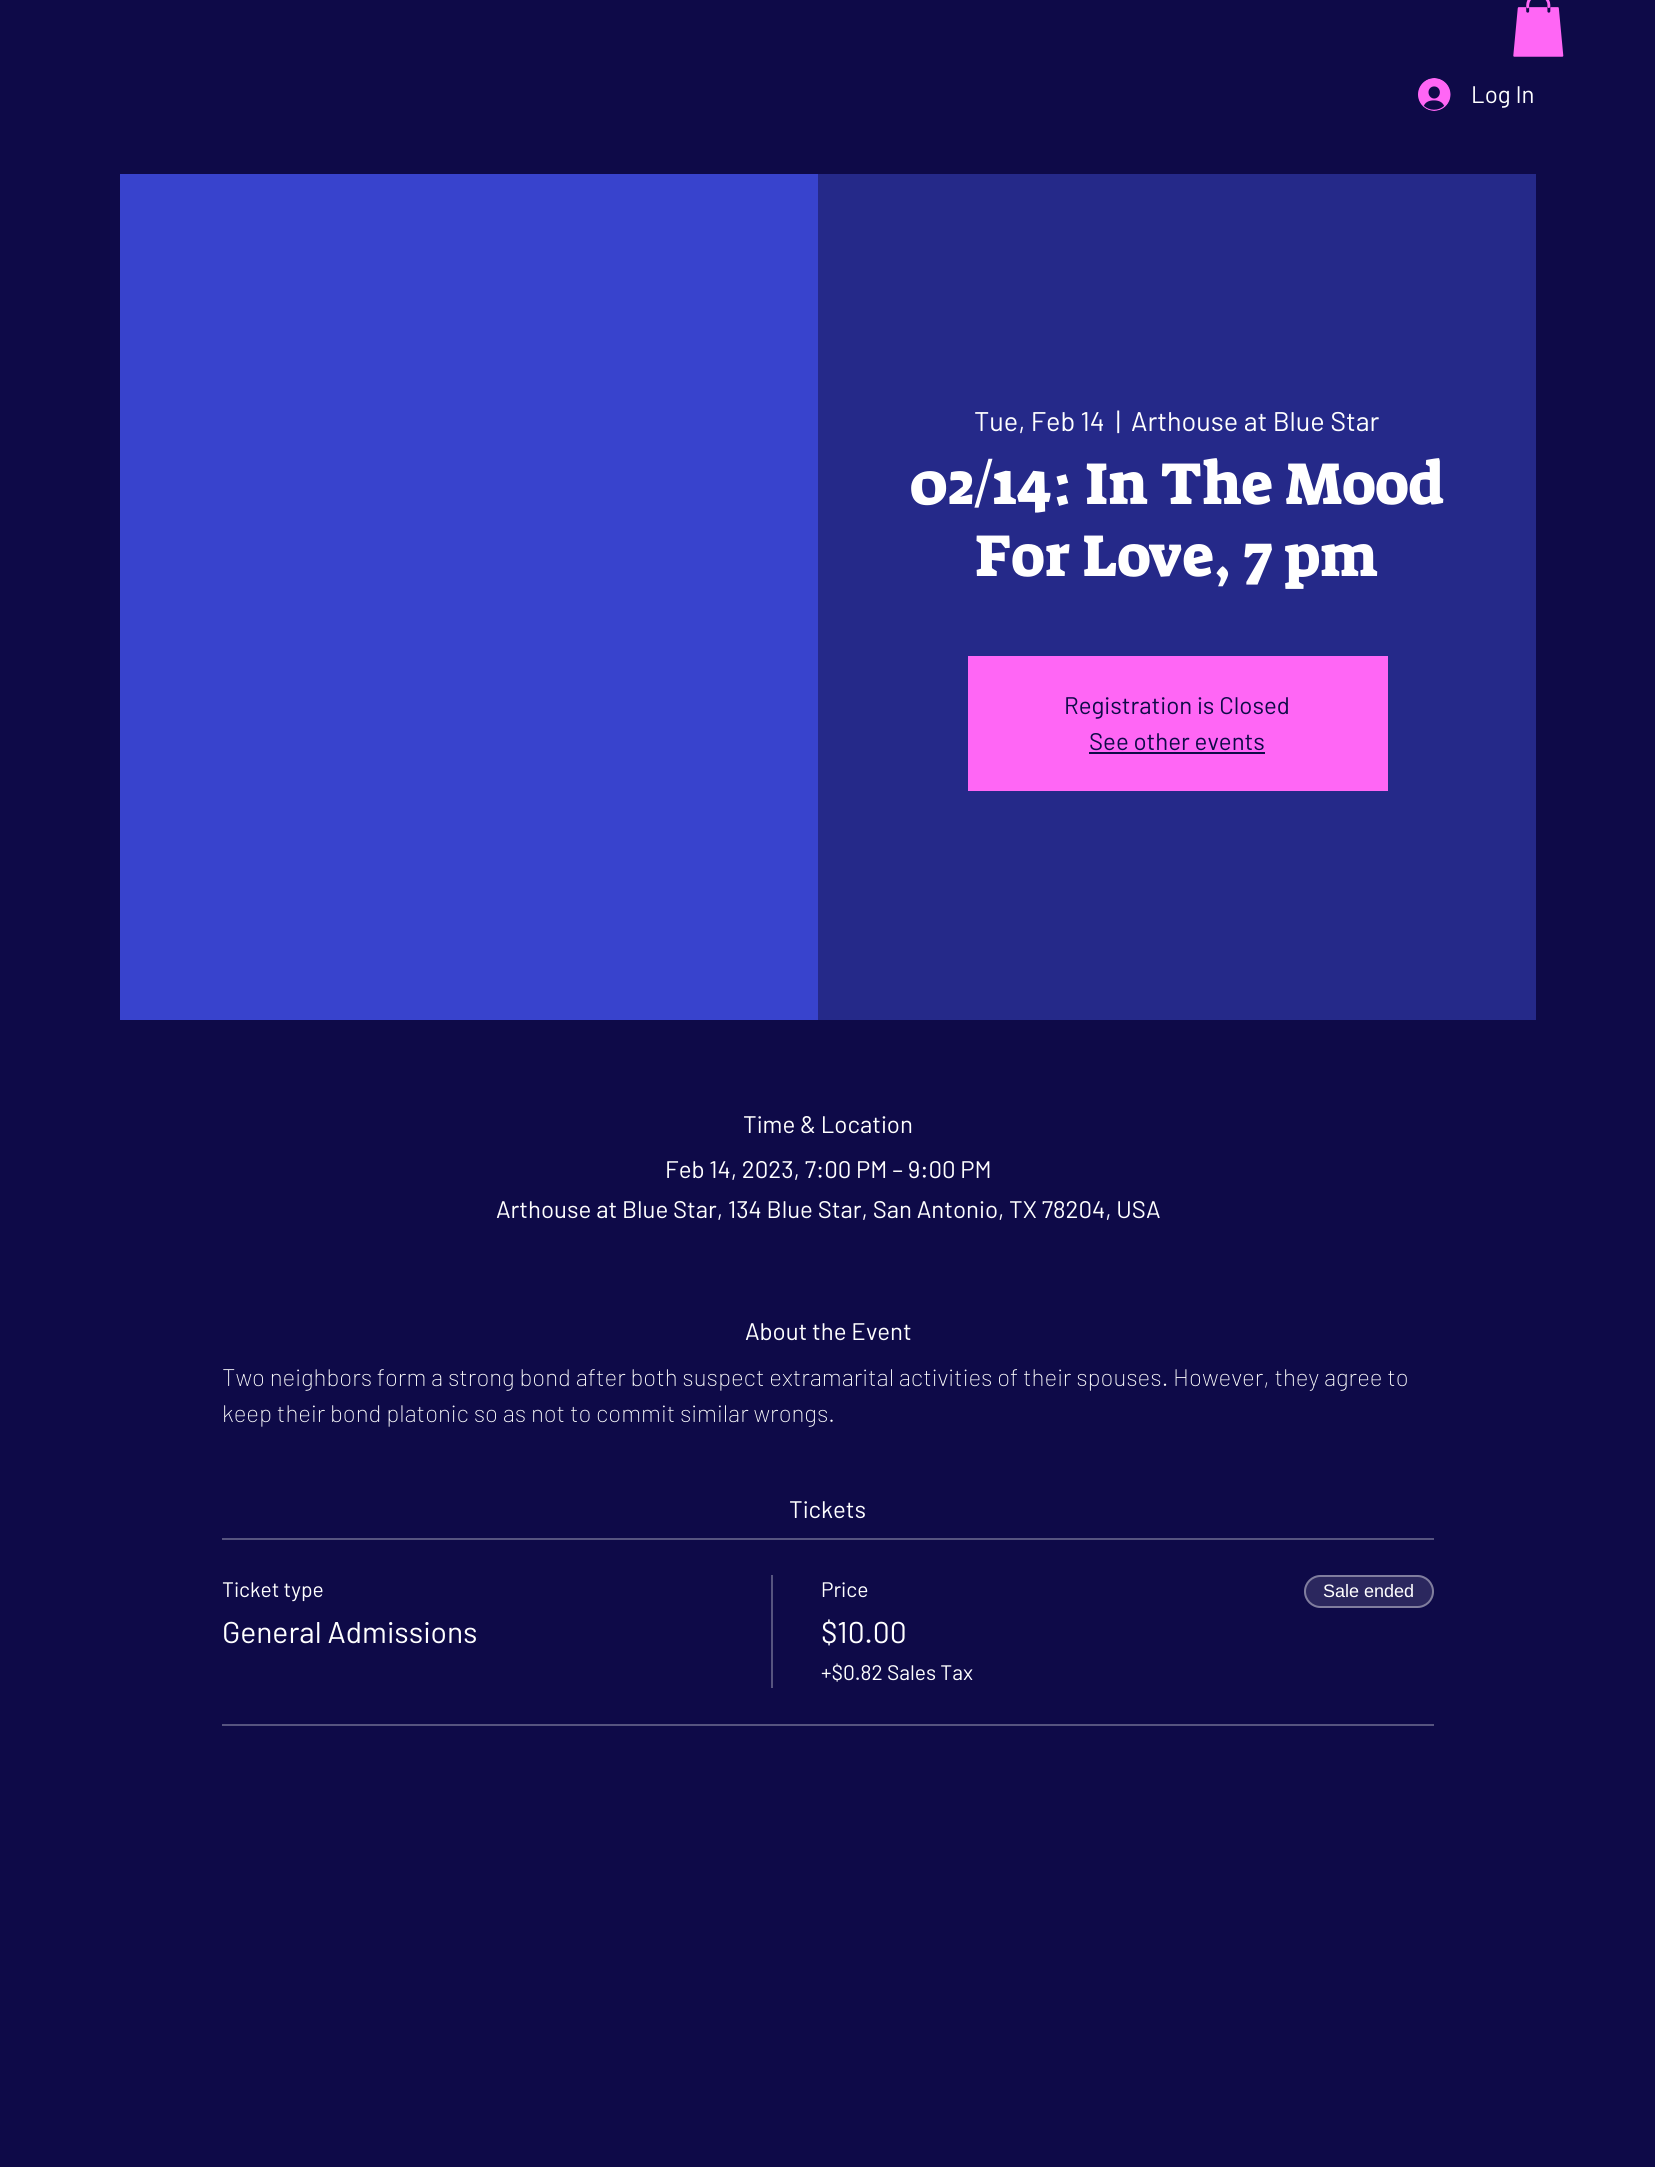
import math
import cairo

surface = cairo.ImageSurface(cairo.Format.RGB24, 1655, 2167)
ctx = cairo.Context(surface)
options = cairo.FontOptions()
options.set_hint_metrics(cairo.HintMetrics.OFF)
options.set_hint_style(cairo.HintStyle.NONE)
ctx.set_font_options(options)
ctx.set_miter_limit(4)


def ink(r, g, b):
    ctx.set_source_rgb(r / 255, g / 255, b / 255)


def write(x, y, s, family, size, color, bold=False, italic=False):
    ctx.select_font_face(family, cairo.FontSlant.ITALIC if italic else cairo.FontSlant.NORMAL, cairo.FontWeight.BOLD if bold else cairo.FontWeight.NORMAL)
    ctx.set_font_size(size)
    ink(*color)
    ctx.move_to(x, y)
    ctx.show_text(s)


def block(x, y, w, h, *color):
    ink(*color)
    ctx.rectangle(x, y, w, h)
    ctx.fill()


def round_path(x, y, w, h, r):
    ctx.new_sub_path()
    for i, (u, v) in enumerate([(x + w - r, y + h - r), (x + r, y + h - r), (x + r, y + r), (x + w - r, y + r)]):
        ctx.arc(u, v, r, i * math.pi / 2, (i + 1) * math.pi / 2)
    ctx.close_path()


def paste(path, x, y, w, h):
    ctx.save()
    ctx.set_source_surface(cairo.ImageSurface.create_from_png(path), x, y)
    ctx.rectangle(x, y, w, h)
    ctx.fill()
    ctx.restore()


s1 = dict(family="Barlow", size=24, color=(255, 255, 255))
s2 = dict(family="Barlow", size=27, color=(255, 255, 255))
s3 = dict(family="Suez One", size=60, color=(255, 255, 255))
s4 = dict(family="Barlow", size=24, color=(14, 10, 72))
s5 = dict(family="Barlow ExtraLight", size=24, color=(255, 255, 255))
s6 = dict(family="Barlow", size=21, color=(255, 255, 255))
s7 = dict(family="Barlow", size=30, color=(255, 255, 255))
s8 = dict(family="Liberation Sans", size=18, color=(255, 255, 255))

ink(14, 10, 72)
ctx.paint()
paste("pic1.png", 1513, 0, 51, 57)
paste("pic2.png", 1418, 78, 33, 33)
write(1471, 103, "Log In", **s1)
block(120, 174, 698, 846, 56, 67, 205)
block(818, 174, 718, 846, 37, 41, 137)
write(974, 431, "Tue, Feb 14", **s2)
write(1116, 431, "|", **s2)
write(1131, 431, "Arthouse at Blue Star", **s2)
write(909, 504, "02/14: In The Mood", **s3)
write(975, 576, "For Love, 7 pm", **s3)
block(968, 656, 420, 135, 255, 102, 245)
write(1064, 714, "Registration is Closed", **s4)
write(1089, 750, "See other events", **s4)
block(1089, 752, 176, 2, 14, 10, 72)
write(743, 1133, "Time & Location", **s1)
write(665, 1178, "Feb 14, 2023, 7:00 PM – 9:00 PM", **s1)
write(496, 1218, "Arthouse at Blue Star, 134 Blue Star, San Antonio, TX 78204, USA", **s1)
write(745, 1340, "About the Event", **s1)
write(222, 1386, "Two neighbors form a strong bond after both suspect extramarital activities of their spouses. However, they agree to", **s5)
write(222, 1422, "keep their bond platonic so as not to commit similar wrongs.", **s5)
write(789, 1518, "Tickets", **s1)
block(222, 1538, 1212, 2, 86, 84, 127)
block(222, 1724, 1212, 2, 86, 84, 127)
write(222, 1597, "Ticket type", **s6)
write(222, 1643, "General Admissions", **s7)
block(771, 1575, 2, 113, 86, 84, 127)
write(821, 1597, "Price", **s6)
write(821, 1643, "$10.00", **s7)
write(821, 1680, "+$0.82 Sales Tax", **s6)
ink(43, 39, 94)
round_path(1304, 1575, 130, 33, 16.5)
ctx.fill()
round_path(1305, 1576, 128, 31, 15.5)
ctx.set_source_rgba(1, 1, 1, 0.4)
ctx.stroke()
write(1323, 1597, "Sale ended", **s8)
surface.write_to_png("screenshot.png")
